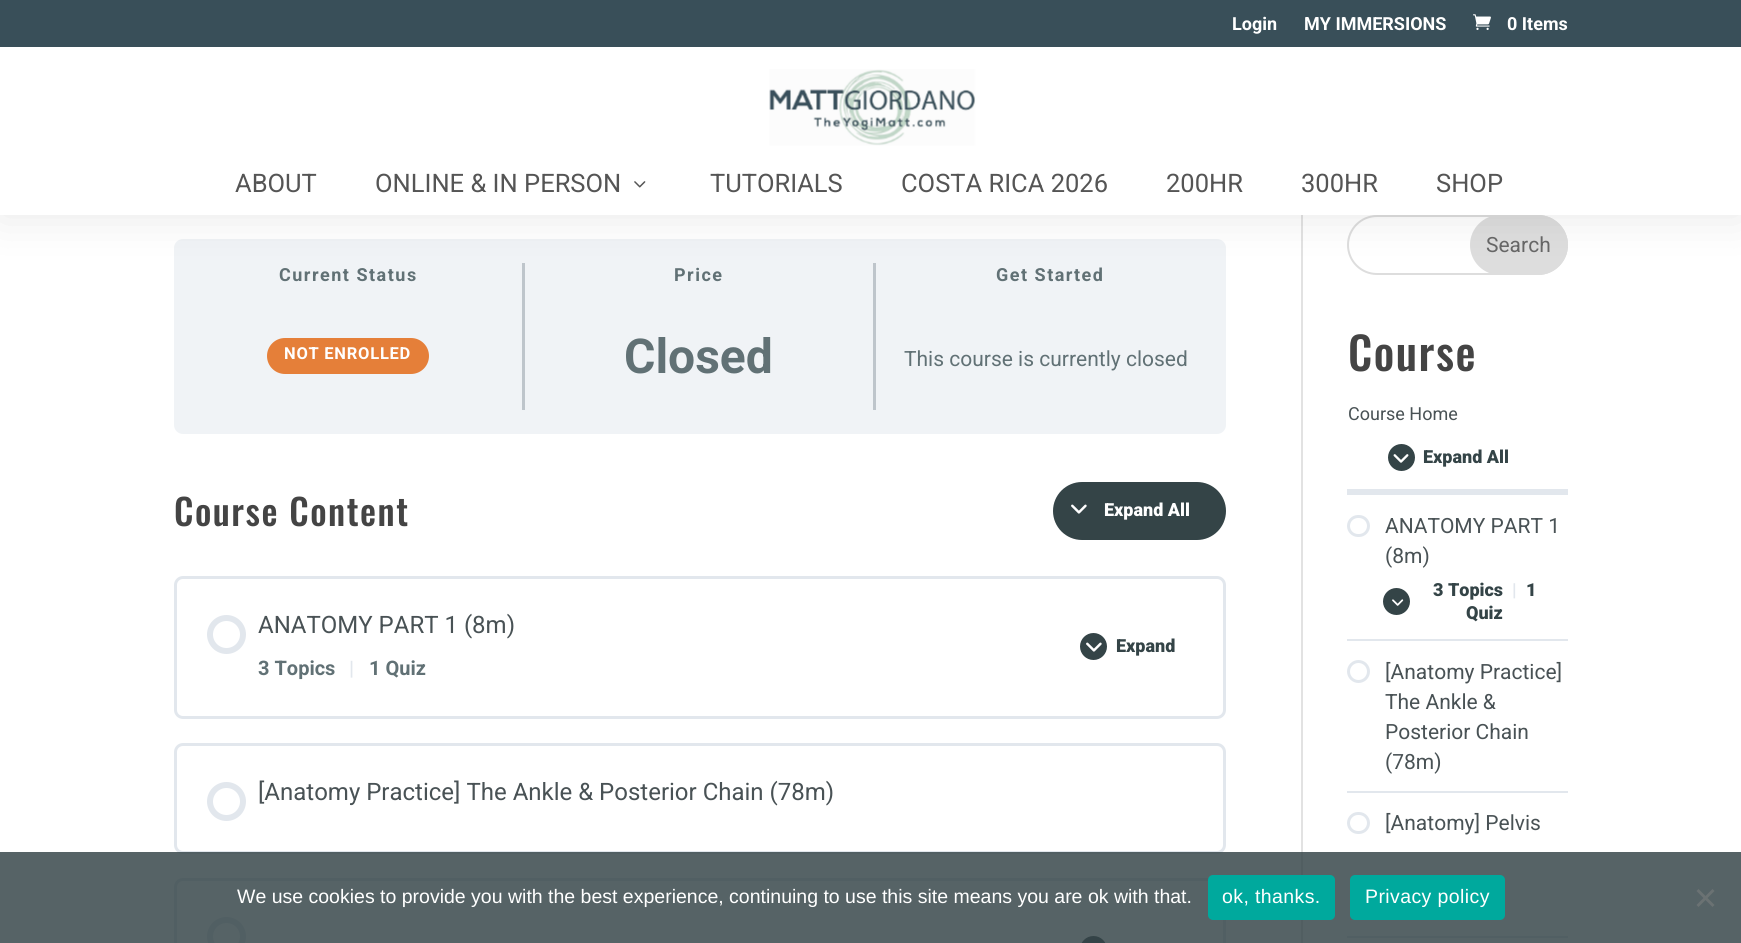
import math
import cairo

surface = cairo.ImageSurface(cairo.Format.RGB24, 1741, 943)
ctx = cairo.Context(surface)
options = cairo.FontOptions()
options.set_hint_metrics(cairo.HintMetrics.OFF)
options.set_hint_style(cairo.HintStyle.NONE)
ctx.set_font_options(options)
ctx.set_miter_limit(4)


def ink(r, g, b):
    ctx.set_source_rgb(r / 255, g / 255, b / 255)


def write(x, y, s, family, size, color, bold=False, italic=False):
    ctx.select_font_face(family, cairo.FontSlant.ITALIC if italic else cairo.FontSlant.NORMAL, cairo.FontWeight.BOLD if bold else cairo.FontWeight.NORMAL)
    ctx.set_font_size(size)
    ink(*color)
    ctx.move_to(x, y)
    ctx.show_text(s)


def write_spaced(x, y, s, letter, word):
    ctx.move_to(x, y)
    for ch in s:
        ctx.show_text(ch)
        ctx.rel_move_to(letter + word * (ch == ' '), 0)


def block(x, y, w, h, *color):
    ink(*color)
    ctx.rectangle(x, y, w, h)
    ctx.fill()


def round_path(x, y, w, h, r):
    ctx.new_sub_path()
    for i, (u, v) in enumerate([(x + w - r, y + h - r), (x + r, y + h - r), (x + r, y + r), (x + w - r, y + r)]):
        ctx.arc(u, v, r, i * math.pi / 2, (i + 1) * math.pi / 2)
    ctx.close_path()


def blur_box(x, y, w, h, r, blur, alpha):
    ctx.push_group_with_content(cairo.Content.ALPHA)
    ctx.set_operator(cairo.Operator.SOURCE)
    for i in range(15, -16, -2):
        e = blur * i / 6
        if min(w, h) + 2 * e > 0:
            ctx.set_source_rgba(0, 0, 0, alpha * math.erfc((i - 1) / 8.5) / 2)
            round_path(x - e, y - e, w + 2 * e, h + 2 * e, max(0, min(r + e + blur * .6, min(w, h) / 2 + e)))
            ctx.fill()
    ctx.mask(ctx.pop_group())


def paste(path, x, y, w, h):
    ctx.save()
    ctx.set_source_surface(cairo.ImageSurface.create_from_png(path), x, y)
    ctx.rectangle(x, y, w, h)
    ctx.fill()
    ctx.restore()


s1 = dict(family="Roboto", size=18, color=(255, 255, 255), bold=True)
s2 = dict(family="Roboto", size=25.5, color=(85, 85, 85))
s3 = dict(family="Roboto", size=48, color=(97, 113, 117), bold=True)
s4 = dict(family="Roboto", size=21, color=(97, 113, 117))
s5 = dict(family="Roboto Black", size=18, color=(255, 255, 255))
s6 = dict(family="Roboto", size=24, color=(73, 82, 85))
s7 = dict(family="Roboto", size=20, color=(97, 113, 117), bold=True)
s8 = dict(family="Roboto", size=20, color=(226, 231, 237), bold=True)
s9 = dict(family="Roboto Black", size=18, color=(52, 68, 71))
s10 = dict(family="Roboto", size=21, color=(102, 102, 102))
s11 = dict(family="Roboto", size=18, color=(73, 82, 85))
s12 = dict(family="Roboto", size=21, color=(73, 82, 85))
s13 = dict(family="Roboto Black", size=18, color=(226, 231, 237))
s14 = dict(family="Liberation Sans", size=19.5, color=(255, 255, 255))

ink(255, 255, 255)
ctx.paint()
block(1301, 215, 2, 728, 226, 226, 226)
ink(240, 243, 246)
round_path(174, 239, 1052, 195, 9)
ctx.fill()
block(522, 263, 3, 147, 190, 197, 203)
block(873, 263, 3, 147, 190, 197, 203)
round_path(1348, 216, 219, 58, 29)
ink(221, 221, 221)
ctx.stroke()
round_path(1471, 216, 96, 58, 29)
ctx.fill_preserve()
ctx.stroke()
ink(0, 0, 0)
blur_box(0, 47, 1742, 168, 0, 22.5, 0.1)
block(0, 0, 1741, 47, 57, 79, 89)
write(1232, 30, "Login", **s1)
write(1304, 30, "MY IMMERSIONS", **s1)
paste("pic1.png", 1473, 14, 18, 16)
write(1507, 30, "0 Items", **s1)
block(0, 47, 1741, 168, 255, 255, 255)
paste("pic2.png", 769, 69, 207, 77)
write(235, 192, "ABOUT", **s2)
write(375, 192, "ONLINE & IN PERSON", **s2)
paste("pic3.png", 634, 181, 12, 7)
write(710, 192, "TUTORIALS", **s2)
write(901, 192, "COSTA RICA 2026", **s2)
write(1166, 192, "200HR", **s2)
write(1301, 192, "300HR", **s2)
write(1436, 192, "SHOP", **s2)
ctx.select_font_face("Roboto", cairo.FontSlant.NORMAL, cairo.FontWeight.BOLD)
ctx.set_font_size(18)
ink(97, 113, 117)
write_spaced(279, 281, "Current Status", 1.5, 0)
ink(229, 127, 57)
round_path(267, 338, 162, 36, 18)
ctx.fill()
ctx.set_font_size(16.5)
ink(255, 255, 255)
write_spaced(284, 359, "NOT ENROLLED", 0.75, 0)
ctx.set_font_size(18)
ink(97, 113, 117)
write_spaced(674, 281, "Price", 1.5, 0)
write(624, 373, "Closed", **s3)
ctx.set_font_size(18)
write_spaced(996, 281, "Get Started", 1.5, 0)
write(904, 366, "This course is currently closed", **s4)
ctx.select_font_face("Oswald Medium")
ctx.set_font_size(36)
ink(68, 68, 68)
write_spaced(174, 526, "Course Content", 1.5, 0)
ink(52, 68, 71)
round_path(1053, 482, 173, 58, 29)
ctx.fill()
paste("pic4.png", 1071, 504, 16, 10)
write(1104, 516, "Expand All", **s5)
round_path(175.5, 577.5, 1049, 140, 7.5)
ink(226, 231, 237)
ctx.set_line_width(3)
ctx.stroke()
ctx.arc(226.5, 634.5, 16.5, 0, 2 * math.pi)
ctx.set_line_width(6)
ctx.stroke()
write(258, 633, "ANATOMY PART 1 (8m)", **s6)
write(258, 675, "3 Topics", **s7)
write(349, 675, "|", **s8)
write(369, 675, "1 Quiz", **s7)
ink(52, 68, 71)
ctx.new_path()
ctx.arc(1093.5, 646.5, 13.5, 0, 2 * math.pi)
ctx.fill()
paste("pic4.png", 1086, 642, 16, 10)
write(1116, 652, "Expand", **s9)
round_path(175.5, 744.5, 1049, 108, 7.5)
ink(226, 231, 237)
ctx.set_line_width(3)
ctx.stroke()
ctx.arc(226.5, 801.5, 16.5, 0, 2 * math.pi)
ctx.set_line_width(6)
ctx.stroke()
write(258, 800, "[Anatomy Practice] The Ankle & Posterior Chain (78m)", **s6)
round_path(175.5, 879.5, 1049, 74, 7.5)
ink(226, 231, 237)
ctx.set_line_width(3)
ctx.stroke()
ctx.arc(226.5, 936.5, 16.5, 0, 2 * math.pi)
ctx.set_line_width(6)
ctx.stroke()
ink(52, 68, 71)
round_path(1080, 936, 27, 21, 13.5)
ctx.fill()
write(1486, 252, "Search", **s10)
ctx.select_font_face("Oswald Medium")
ctx.set_font_size(45)
ink(68, 68, 68)
write_spaced(1348, 371, "Course", 1.5, 0)
block(1347, 489, 221, 6, 226, 231, 237)
write(1348, 420, "Course Home", **s11)
ink(52, 68, 71)
ctx.new_path()
ctx.arc(1401.5, 457.5, 13.5, 0, 2 * math.pi)
ctx.fill()
paste("pic5.png", 1393, 454, 16, 9)
write(1423, 463, "Expand All", **s9)
block(1347, 639, 221, 2, 226, 231, 237)
round_path(1348.5, 516.5, 20, 19, 9.5)
ctx.set_line_width(3)
ctx.stroke()
write(1385, 533, "ANATOMY PART 1", **s12)
write(1385, 563, "(8m)", **s12)
ink(52, 68, 71)
ctx.new_path()
ctx.arc(1396.5, 601.5, 13.5, 0, 2 * math.pi)
ctx.fill()
paste("pic6.png", 1392, 599, 12, 7)
write(1433, 596, "3 Topics", **s9)
write(1512, 596, "|", **s13)
write(1526, 596, "1", **s9)
write(1466, 619, "Quiz", **s9)
block(1347, 791, 221, 2, 226, 231, 237)
ctx.new_path()
ctx.arc(1358.5, 671.5, 10, 0, 2 * math.pi)
ctx.stroke()
write(1385, 679, "[Anatomy Practice]", **s12)
write(1385, 709, "The Ankle &", **s12)
write(1385, 739, "Posterior Chain", **s12)
write(1385, 769, "(78m)", **s12)
block(1347, 936, 221, 2, 226, 231, 237)
round_path(1348.5, 813.5, 20, 19, 9.5)
ctx.stroke()
write(1385, 830, "[Anatomy] Pelvis", **s12)
ctx.set_source_rgba(0.204, 0.267, 0.278, 0.83)
ctx.rectangle(0, 852, 1741, 91)
ctx.fill()
write(237, 903, "We use cookies to provide you with the best experience, continuing to use this site means you are ok with that.", **s14)
ink(0, 169, 157)
round_path(1208, 875, 127, 45, 5)
ctx.fill()
ink(255, 255, 255)
write_spaced(1222, 903, "ok, thanks.", 0.4, 0)
ink(0, 169, 157)
round_path(1350, 875, 155, 45, 5)
ctx.fill()
ink(255, 255, 255)
write_spaced(1365, 903, "Privacy policy", 0.4, 0)
ink(107, 114, 115)
ctx.new_path()
ctx.move_to(1712.5, 889)
ctx.line_to(1714.5, 891)
ctx.line_to(1698.5, 907)
ctx.line_to(1696.5, 905)
ctx.close_path()
ctx.fill()
ctx.new_path()
ctx.move_to(1696.5, 891)
ctx.line_to(1698.5, 889)
ctx.line_to(1714.5, 905)
ctx.line_to(1712.5, 907)
ctx.close_path()
ctx.fill()
surface.write_to_png("screenshot.png")
